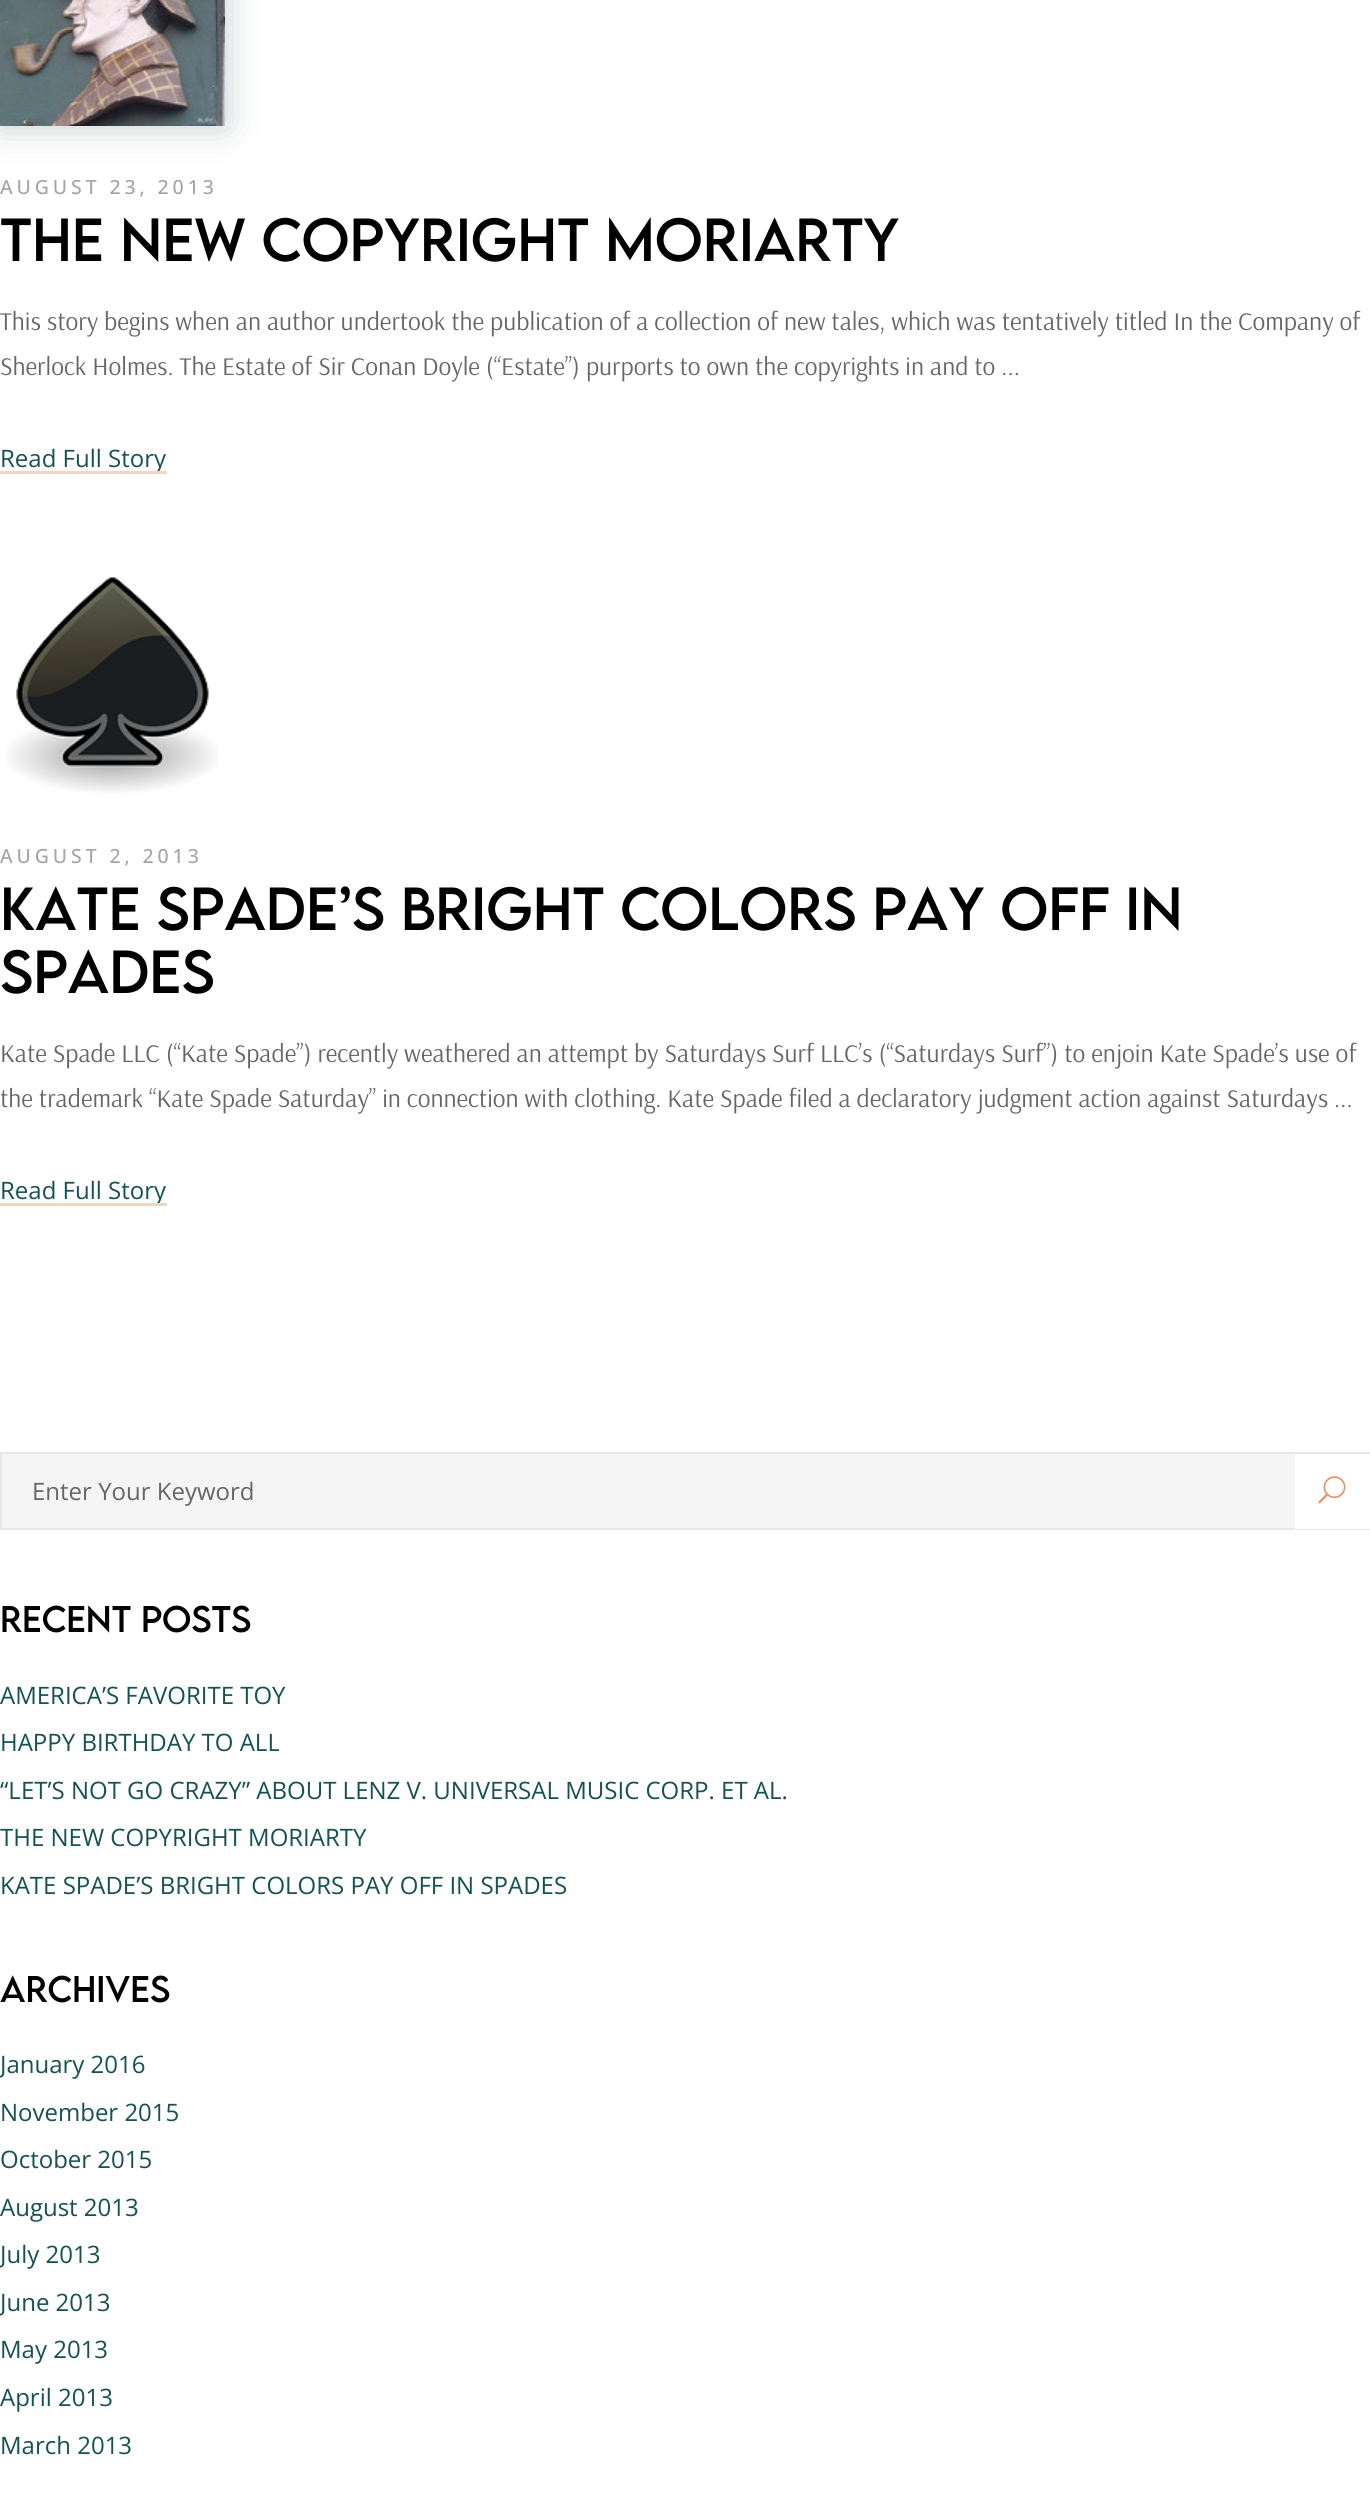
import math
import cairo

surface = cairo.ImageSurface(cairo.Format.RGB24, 1370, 2497)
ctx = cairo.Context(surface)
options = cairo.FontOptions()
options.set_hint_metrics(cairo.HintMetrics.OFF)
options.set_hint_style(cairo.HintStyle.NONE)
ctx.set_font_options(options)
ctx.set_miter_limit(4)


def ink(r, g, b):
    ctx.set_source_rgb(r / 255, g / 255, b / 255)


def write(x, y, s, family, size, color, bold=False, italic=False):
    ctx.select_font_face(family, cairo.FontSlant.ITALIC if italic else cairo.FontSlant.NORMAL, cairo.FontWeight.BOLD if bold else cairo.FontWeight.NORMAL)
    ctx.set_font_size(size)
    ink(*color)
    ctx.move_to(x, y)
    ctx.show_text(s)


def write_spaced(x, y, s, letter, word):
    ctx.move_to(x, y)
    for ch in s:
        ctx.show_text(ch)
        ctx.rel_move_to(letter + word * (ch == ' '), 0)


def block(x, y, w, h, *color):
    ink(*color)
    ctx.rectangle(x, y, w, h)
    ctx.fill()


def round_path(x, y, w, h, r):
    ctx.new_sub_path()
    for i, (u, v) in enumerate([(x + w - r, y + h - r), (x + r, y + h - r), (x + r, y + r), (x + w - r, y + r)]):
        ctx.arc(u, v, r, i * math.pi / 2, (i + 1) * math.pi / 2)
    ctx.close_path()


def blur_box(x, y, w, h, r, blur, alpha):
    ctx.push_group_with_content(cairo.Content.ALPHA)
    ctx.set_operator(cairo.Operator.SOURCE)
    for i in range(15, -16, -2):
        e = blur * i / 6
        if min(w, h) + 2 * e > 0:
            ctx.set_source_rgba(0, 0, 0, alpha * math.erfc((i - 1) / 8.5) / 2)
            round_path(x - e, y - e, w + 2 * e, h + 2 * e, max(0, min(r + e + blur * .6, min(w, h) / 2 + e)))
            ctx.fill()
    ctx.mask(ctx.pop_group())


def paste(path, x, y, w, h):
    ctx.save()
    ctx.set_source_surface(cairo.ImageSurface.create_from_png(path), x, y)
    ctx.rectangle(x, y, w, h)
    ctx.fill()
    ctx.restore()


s1 = dict(family="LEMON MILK", size=54, color=(0, 0, 0))
s2 = dict(family="Arsenal", size=25.5, color=(102, 102, 102))
s3 = dict(family="Open Sans", size=24, color=(22, 81, 83))
s4 = dict(family="Open Sans", size=24, color=(102, 102, 102))
s5 = dict(family="LEMON MILK", size=33, color=(0, 0, 0))

ink(255, 255, 255)
ctx.paint()
ink(16, 49, 50)
blur_box(0, -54, 225, 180, 0, 18, 0.24)
paste("pic1.png", 0, 0, 225, 126)
ctx.select_font_face("Open Sans Medium")
ctx.set_font_size(19.5)
ink(164, 164, 164)
write_spaced(0, 194, "AUGUST 23, 2013", 3.9, 0)
write(0, 261, "THE NEW COPYRIGHT MORIARTY", **s1)
write(0, 330, "This story begins when an author undertook the publication of a collection of new tales, which was tentatively titled In the Company of", **s2)
write(0, 375, "Sherlock Holmes. The Estate of Sir Conan Doyle (“Estate”) purports to own the copyrights in and to ...", **s2)
write(0, 467, "Read Full Story", **s3)
block(0, 471, 167, 3, 245, 212, 196)
paste("pic2.png", 7, 577, 211, 216)
ctx.select_font_face("Open Sans Medium")
ctx.set_font_size(19.5)
ink(164, 164, 164)
write_spaced(0, 863, "AUGUST 2, 2013", 3.9, 0)
write(0, 930, "KATE SPADE’S BRIGHT COLORS PAY OFF IN", **s1)
write(0, 993, "SPADES", **s1)
write(0, 1062, "Kate Spade LLC (“Kate Spade”) recently weathered an attempt by Saturdays Surf LLC’s (“Saturdays Surf”) to enjoin Kate Spade’s use of", **s2)
write(0, 1107, "the trademark “Kate Spade Saturday” in connection with clothing. Kate Spade filed a declaratory judgment action against Saturdays ...", **s2)
write(0, 1199, "Read Full Story", **s3)
block(0, 1203, 167, 3, 245, 212, 196)
block(2, 1454, 1293, 74, 245, 245, 245)
ctx.rectangle(1, 1453, 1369, 76)
ink(231, 231, 231)
ctx.stroke()
write(32, 1500, "Enter Your Keyword", **s4)
block(1295, 1454, 75, 75, 255, 255, 255)
paste("pic3.png", 1318, 1476, 28, 28)
write(0, 1632, "Recent Posts", **s5)
write(0, 1704, "AMERICA’S FAVORITE TOY", **s3)
write(0, 1751, "HAPPY BIRTHDAY TO ALL", **s3)
write(0, 1799, "“LET’S NOT GO CRAZY” ABOUT LENZ V. UNIVERSAL MUSIC CORP. ET AL.", **s3)
write(0, 1846, "THE NEW COPYRIGHT MORIARTY", **s3)
write(0, 1894, "KATE SPADE’S BRIGHT COLORS PAY OFF IN SPADES", **s3)
write(0, 2002, "Archives", **s5)
write(0, 2073, "January 2016", **s3)
write(0, 2121, "November 2015", **s3)
write(0, 2168, "October 2015", **s3)
write(0, 2216, "August 2013", **s3)
write(0, 2263, "July 2013", **s3)
write(0, 2311, "June 2013", **s3)
write(0, 2358, "May 2013", **s3)
write(0, 2406, "April 2013", **s3)
write(0, 2454, "March 2013", **s3)
surface.write_to_png("screenshot.png")
